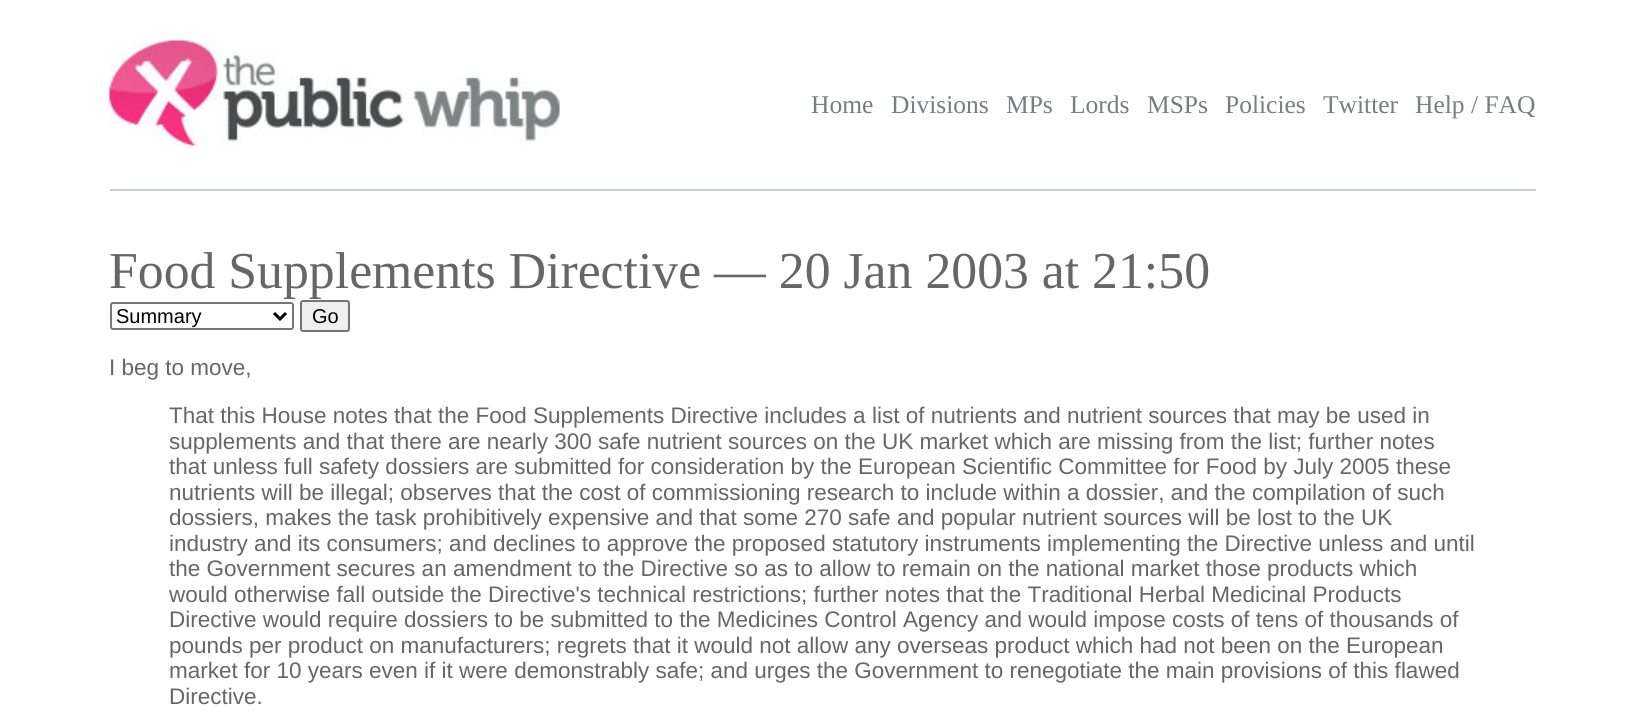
import math
import cairo

surface = cairo.ImageSurface(cairo.Format.RGB24, 1644, 718)
ctx = cairo.Context(surface)
options = cairo.FontOptions()
options.set_hint_metrics(cairo.HintMetrics.OFF)
options.set_hint_style(cairo.HintStyle.NONE)
ctx.set_font_options(options)
ctx.set_miter_limit(4)


def ink(r, g, b):
    ctx.set_source_rgb(r / 255, g / 255, b / 255)


def write(x, y, s, family, size, color, bold=False, italic=False):
    ctx.select_font_face(family, cairo.FontSlant.ITALIC if italic else cairo.FontSlant.NORMAL, cairo.FontWeight.BOLD if bold else cairo.FontWeight.NORMAL)
    ctx.set_font_size(size)
    ink(*color)
    ctx.move_to(x, y)
    ctx.show_text(s)


def block(x, y, w, h, *color):
    ink(*color)
    ctx.rectangle(x, y, w, h)
    ctx.fill()


def round_path(x, y, w, h, r):
    ctx.new_sub_path()
    for i, (u, v) in enumerate([(x + w - r, y + h - r), (x + r, y + h - r), (x + r, y + r), (x + w - r, y + r)]):
        ctx.arc(u, v, r, i * math.pi / 2, (i + 1) * math.pi / 2)
    ctx.close_path()


def paste(path, x, y, w, h):
    ctx.save()
    ctx.set_source_surface(cairo.ImageSurface.create_from_png(path), x, y)
    ctx.rectangle(x, y, w, h)
    ctx.fill()
    ctx.restore()


s1 = dict(family="Liberation Serif", size=25.5, color=(121, 125, 127))
s2 = dict(family="Liberation Serif", size=51.75, color=(102, 102, 102))
s3 = dict(family="Liberation Sans", size=20, color=(0, 0, 0))
s4 = dict(family="Liberation Sans", size=22.5, color=(102, 102, 102))

ink(255, 255, 255)
ctx.paint()
block(110, 189, 1426, 2, 198, 206, 208)
paste("pic1.png", 109, 40, 451, 106)
write(811, 113, "Home", **s1)
write(891, 113, "Divisions", **s1)
write(1006, 113, "MPs", **s1)
write(1070, 113, "Lords", **s1)
write(1147, 113, "MSPs", **s1)
write(1225, 113, "Policies", **s1)
write(1323, 113, "Twitter", **s1)
write(1415, 113, "Help / FAQ", **s1)
write(109, 288, "Food Supplements Directive — 20 Jan 2003 at 21:50", **s2)
round_path(111, 303, 182, 26, 2)
ink(118, 118, 118)
ctx.stroke()
ctx.new_path()
ctx.move_to(274, 313)
ctx.line_to(280, 319)
ctx.line_to(286, 313)
ink(0, 0, 0)
ctx.set_line_width(3)
ctx.stroke()
write(116, 323, "Summary", **s3)
ink(239, 239, 239)
round_path(301, 301, 48, 30, 2)
ctx.fill_preserve()
ink(118, 118, 118)
ctx.set_line_width(2)
ctx.stroke()
write(312, 323, "Go", **s3)
write(109, 375, "I beg to move,", **s4)
write(169, 423, "That this House notes that the Food Supplements Directive includes a list of nutrients and nutrient sources that may be used in", **s4)
write(169, 449, "supplements and that there are nearly 300 safe nutrient sources on the UK market which are missing from the list; further notes", **s4)
write(169, 474, "that unless full safety dossiers are submitted for consideration by the European Scientific Committee for Food by July 2005 these", **s4)
write(169, 500, "nutrients will be illegal; observes that the cost of commissioning research to include within a dossier, and the compilation of such", **s4)
write(169, 525, "dossiers, makes the task prohibitively expensive and that some 270 safe and popular nutrient sources will be lost to the UK", **s4)
write(169, 551, "industry and its consumers; and declines to approve the proposed statutory instruments implementing the Directive unless and until", **s4)
write(169, 576, "the Government secures an amendment to the Directive so as to allow to remain on the national market those products which", **s4)
write(169, 602, "would otherwise fall outside the Directive's technical restrictions; further notes that the Traditional Herbal Medicinal Products", **s4)
write(169, 627, "Directive would require dossiers to be submitted to the Medicines Control Agency and would impose costs of tens of thousands of", **s4)
write(169, 653, "pounds per product on manufacturers; regrets that it would not allow any overseas product which had not been on the European", **s4)
write(169, 678, "market for 10 years even if it were demonstrably safe; and urges the Government to renegotiate the main provisions of this flawed", **s4)
write(169, 704, "Directive.", **s4)
surface.write_to_png("screenshot.png")
